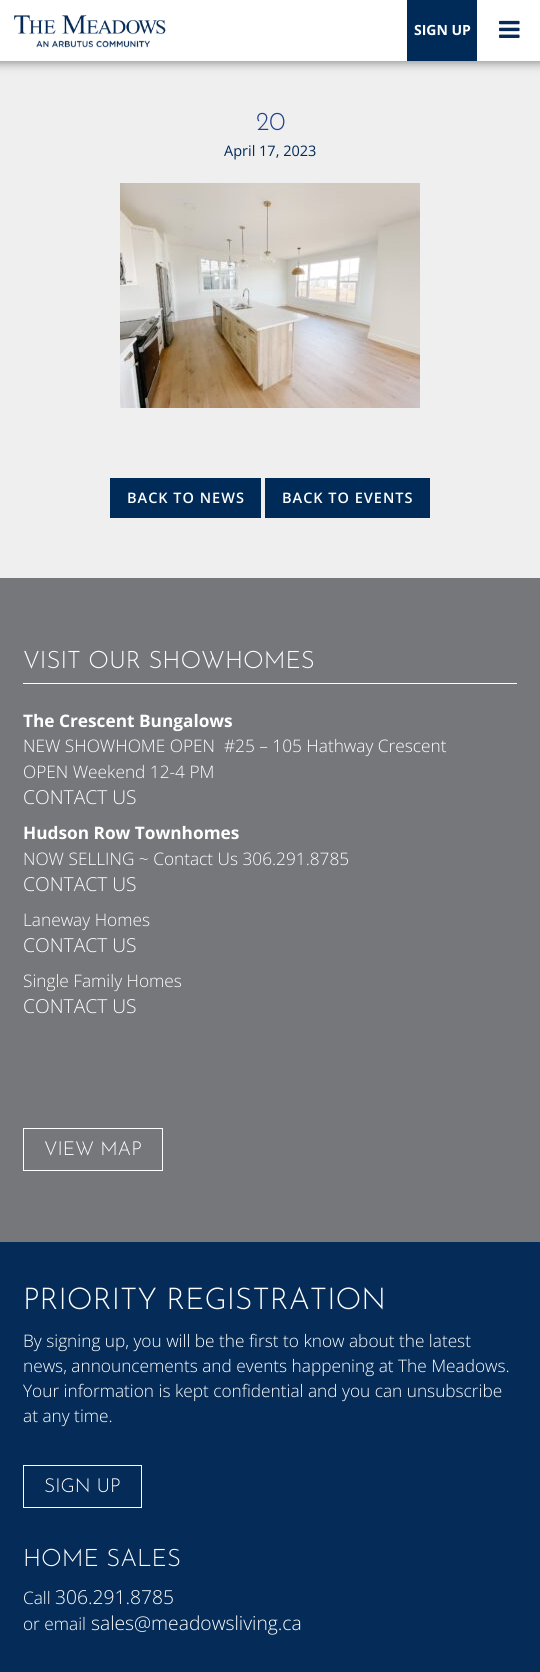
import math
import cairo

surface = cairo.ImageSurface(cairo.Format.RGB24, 540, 1672)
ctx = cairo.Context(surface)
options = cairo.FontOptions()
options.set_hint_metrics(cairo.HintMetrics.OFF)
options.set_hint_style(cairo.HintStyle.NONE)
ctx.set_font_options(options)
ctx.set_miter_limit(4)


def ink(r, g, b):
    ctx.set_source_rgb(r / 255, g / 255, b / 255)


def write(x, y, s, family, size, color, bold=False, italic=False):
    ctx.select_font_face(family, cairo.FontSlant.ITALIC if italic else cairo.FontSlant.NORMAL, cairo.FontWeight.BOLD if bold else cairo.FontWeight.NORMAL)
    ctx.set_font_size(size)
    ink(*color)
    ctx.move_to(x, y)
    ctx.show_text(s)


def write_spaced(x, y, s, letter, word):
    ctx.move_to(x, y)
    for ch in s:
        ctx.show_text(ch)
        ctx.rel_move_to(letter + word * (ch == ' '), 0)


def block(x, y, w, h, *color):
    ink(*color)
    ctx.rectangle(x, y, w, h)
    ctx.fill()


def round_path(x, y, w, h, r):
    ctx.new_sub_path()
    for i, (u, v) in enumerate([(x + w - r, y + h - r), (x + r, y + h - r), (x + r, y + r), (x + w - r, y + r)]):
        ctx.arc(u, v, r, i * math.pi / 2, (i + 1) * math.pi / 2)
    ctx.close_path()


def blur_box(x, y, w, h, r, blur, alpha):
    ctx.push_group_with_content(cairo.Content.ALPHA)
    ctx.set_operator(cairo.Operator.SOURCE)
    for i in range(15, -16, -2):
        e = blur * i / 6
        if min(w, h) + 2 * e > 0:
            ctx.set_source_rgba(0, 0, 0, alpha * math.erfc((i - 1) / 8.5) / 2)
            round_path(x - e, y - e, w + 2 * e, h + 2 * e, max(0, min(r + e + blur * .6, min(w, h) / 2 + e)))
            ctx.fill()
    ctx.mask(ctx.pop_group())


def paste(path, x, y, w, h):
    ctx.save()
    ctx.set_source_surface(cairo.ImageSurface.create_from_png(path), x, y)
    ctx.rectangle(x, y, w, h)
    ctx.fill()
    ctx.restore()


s1 = dict(family="Open Sans", size=14, color=(255, 255, 255), bold=True)
s2 = dict(family="Josefin Sans Light", size=26, color=(37, 64, 143))
s3 = dict(family="Open Sans", size=14.5, color=(0, 43, 88))
s4 = dict(family="Josefin Sans Light", size=24, color=(255, 255, 255))
s5 = dict(family="Open Sans", size=17.25, color=(255, 255, 255), bold=True)
s6 = dict(family="Open Sans Light", size=17.25, color=(255, 255, 255))
s7 = dict(family="Open Sans Light", size=19.25, color=(255, 255, 255))
s8 = dict(family="Josefin Sans Light", size=19.25, color=(255, 255, 255))
s9 = dict(family="Josefin Sans Light", size=30, color=(255, 255, 255))

ink(239, 239, 239)
ctx.paint()
ink(0, 0, 0)
blur_box(-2, -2, 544, 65, 0, 5, 0.4)
block(0, 0, 540, 61, 255, 255, 255)
paste("pic1.png", 14, 15, 152, 33)
block(407, 0, 70, 61, 0, 43, 88)
write(414, 35, "SIGN UP", **s1)
paste("pic2.png", 499, 20, 21, 18)
write(256, 130, "20", **s2)
write(224, 156, "April 17, 2023", **s3)
paste("pic3.png", 120, 183, 300, 225)
block(110, 478, 151, 40, 0, 43, 88)
ctx.select_font_face("Open Sans SemiBold")
ink(255, 255, 255)
write_spaced(127, 503, "BACK TO NEWS", 1, 0)
block(265, 478, 165, 40, 0, 43, 88)
ink(255, 255, 255)
write_spaced(282, 503, "BACK TO EVENTS", 1, 0)
block(0, 578, 540, 664, 118, 119, 123)
block(23, 683, 494, 1, 255, 255, 255)
write(23, 668, "VISIT OUR SHOWHOMES", **s4)
write(23, 727, "The Crescent Bungalows", **s5)
write(23, 752, "NEW SHOWHOME OPEN  #25 – 105 Hathway Crescent", **s6)
write(23, 778, "OPEN Weekend 12-4 PM", **s6)
write(23, 804, "CONTACT US", **s7)
write(23, 839, "Hudson Row Townhomes", **s5)
write(23, 865, "NOW SELLING ~ Contact Us 306.291.8785", **s6)
write(23, 891, "CONTACT US", **s7)
write(23, 926, "Laneway Homes", **s6)
write(23, 952, "CONTACT US", **s7)
write(23, 987, "Single Family Homes", **s6)
write(23, 1013, "CONTACT US", **s7)
ctx.rectangle(23.5, 1128.5, 139, 42)
ctx.set_line_width(1)
ctx.stroke()
write(44, 1155, "VIEW MAP", **s8)
block(0, 1242, 540, 430, 5, 44, 88)
write(23, 1309, "PRIORITY REGISTRATION", **s9)
write(23, 1347, "By signing up, you will be the first to know about the latest", **s6)
write(23, 1372, "news, announcements and events happening at The Meadows.", **s6)
write(23, 1397, "Your information is kept confidential and you can unsubscribe", **s6)
write(23, 1422, "at any time.", **s6)
ctx.rectangle(23.5, 1465.5, 118, 42)
ctx.stroke()
write(44, 1492, "SIGN UP", **s8)
write(23, 1566, "HOME SALES", **s4)
write(23, 1604, "Call", **s6)
write(55, 1604, "306.291.8785", **s7)
write(23, 1630, "or email", **s6)
write(91, 1630, "sales@meadowsliving.ca", **s7)
surface.write_to_png("screenshot.png")
